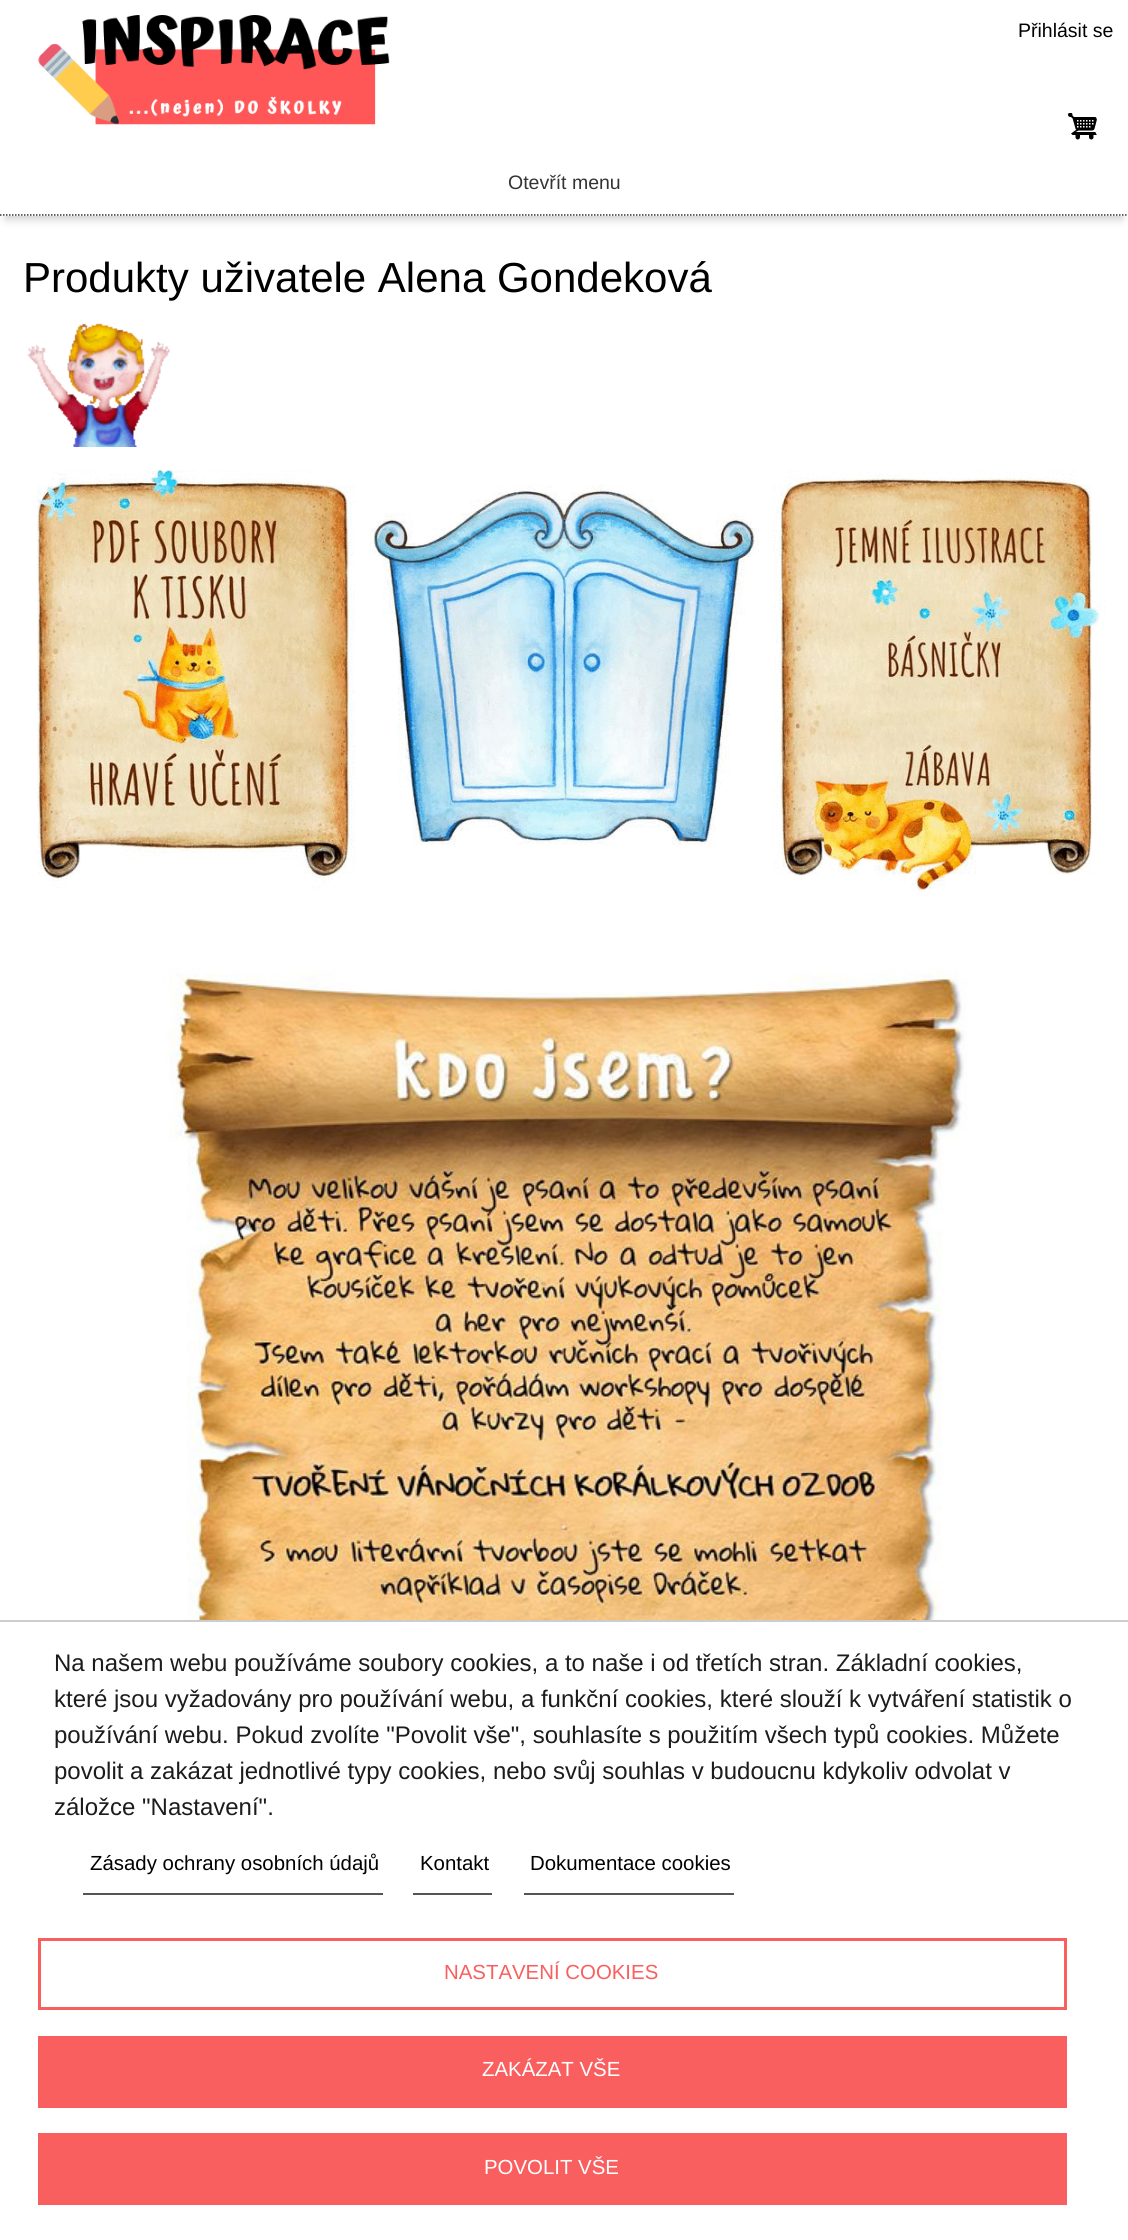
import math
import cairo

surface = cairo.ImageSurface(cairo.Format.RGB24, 1128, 2240)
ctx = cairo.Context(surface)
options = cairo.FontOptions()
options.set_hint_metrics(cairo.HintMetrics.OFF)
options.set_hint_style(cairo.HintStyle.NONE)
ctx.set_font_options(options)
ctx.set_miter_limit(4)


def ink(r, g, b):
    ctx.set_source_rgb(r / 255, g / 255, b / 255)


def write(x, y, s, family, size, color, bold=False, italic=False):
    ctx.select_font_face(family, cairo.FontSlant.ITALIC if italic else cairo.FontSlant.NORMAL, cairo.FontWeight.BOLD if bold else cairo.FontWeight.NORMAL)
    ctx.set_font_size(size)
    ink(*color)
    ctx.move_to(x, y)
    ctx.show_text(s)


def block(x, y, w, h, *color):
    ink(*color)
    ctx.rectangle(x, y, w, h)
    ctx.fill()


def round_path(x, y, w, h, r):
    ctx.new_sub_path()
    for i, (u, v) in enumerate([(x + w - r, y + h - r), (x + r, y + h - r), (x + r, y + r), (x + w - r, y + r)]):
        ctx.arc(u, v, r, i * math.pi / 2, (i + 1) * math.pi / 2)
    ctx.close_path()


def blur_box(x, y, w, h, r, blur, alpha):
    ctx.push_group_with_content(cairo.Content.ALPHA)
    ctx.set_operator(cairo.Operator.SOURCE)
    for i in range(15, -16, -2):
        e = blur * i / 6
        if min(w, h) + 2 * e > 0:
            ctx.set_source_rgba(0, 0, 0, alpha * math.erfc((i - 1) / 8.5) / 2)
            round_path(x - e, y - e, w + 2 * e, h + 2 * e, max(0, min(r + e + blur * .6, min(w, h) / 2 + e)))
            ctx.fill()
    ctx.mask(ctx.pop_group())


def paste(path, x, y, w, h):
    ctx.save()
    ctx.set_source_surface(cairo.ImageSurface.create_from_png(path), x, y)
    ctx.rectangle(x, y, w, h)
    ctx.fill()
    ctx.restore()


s1 = dict(family="Liberation Sans", size=19.5, color=(0, 0, 0))
s2 = dict(family="Liberation Sans", size=19.5, color=(51, 51, 51))
s3 = dict(family="Liberation Sans", size=42, color=(0, 0, 0))
s4 = dict(family="Liberation Sans", size=24, color=(28, 28, 28))
s5 = dict(family="Liberation Sans", size=20.4, color=(0, 0, 0))
s6 = dict(family="Liberation Sans", size=20.4, color=(250, 95, 95))
s7 = dict(family="Liberation Sans", size=20.4, color=(255, 255, 255))

ink(255, 255, 255)
ctx.paint()
paste("pic1.png", 38, 15, 352, 110)
write(1018, 37, "Přihlásit se", **s1)
paste("pic2.png", 1068, 113, 29, 27)
ctx.save()
ctx.rectangle(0, 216, 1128, 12)
ctx.clip()
ink(205, 205, 205)
blur_box(6, 165, 1116, 54, 0, 4.5, 1)
ctx.restore()
ctx.new_path()
ctx.move_to(0, 215)
ctx.line_to(1128, 215)
ink(51, 51, 51)
ctx.set_line_width(1.5)
ctx.set_dash([1.5, 1.5])
ctx.stroke()
write(508, 189, "Otevřít menu", **s2)
write(23, 292, "Produkty uživatele Alena Gondeková", **s3)
paste("pic3.png", 27, 323, 143, 124)
paste("pic4.png", 36, 469, 1070, 427)
paste("pic5.png", 151, 968, 816, 652)
block(0, 1620, 1128, 2, 205, 205, 205)
write(54, 1671, "Na našem webu používáme soubory cookies, a to naše i od třetích stran. Základní cookies,", **s4)
write(54, 1707, "které jsou vyžadovány pro používání webu, a funkční cookies, které slouží k vytváření statistik o", **s4)
write(54, 1743, "používání webu. Pokud zvolíte \"Povolit vše\", souhlasíte s použitím všech typů cookies. Můžete", **s4)
write(54, 1779, "povolit a zakázat jednotlivé typy cookies, nebo svůj souhlas v budoucnu kdykoliv odvolat v", **s4)
write(54, 1815, "záložce \"Nastavení\".", **s4)
block(83, 1893, 300, 2, 85, 85, 85)
write(90, 1870, "Zásady ochrany osobních údajů", **s5)
block(413, 1893, 79, 2, 85, 85, 85)
write(420, 1870, "Kontakt", **s5)
block(524, 1893, 210, 2, 85, 85, 85)
write(530, 1870, "Dokumentace cookies", **s5)
ctx.rectangle(39.5, 1939.5, 1026, 69)
ink(250, 95, 95)
ctx.set_line_width(3)
ctx.set_dash([])
ctx.stroke()
write(444, 1979, "NASTAVENÍ COOKIES", **s6)
block(38, 2036, 1029, 72, 250, 95, 95)
write(482, 2076, "ZAKÁZAT VŠE", **s7)
block(38, 2133, 1029, 72, 250, 95, 95)
write(484, 2174, "POVOLIT VŠE", **s7)
surface.write_to_png("screenshot.png")
